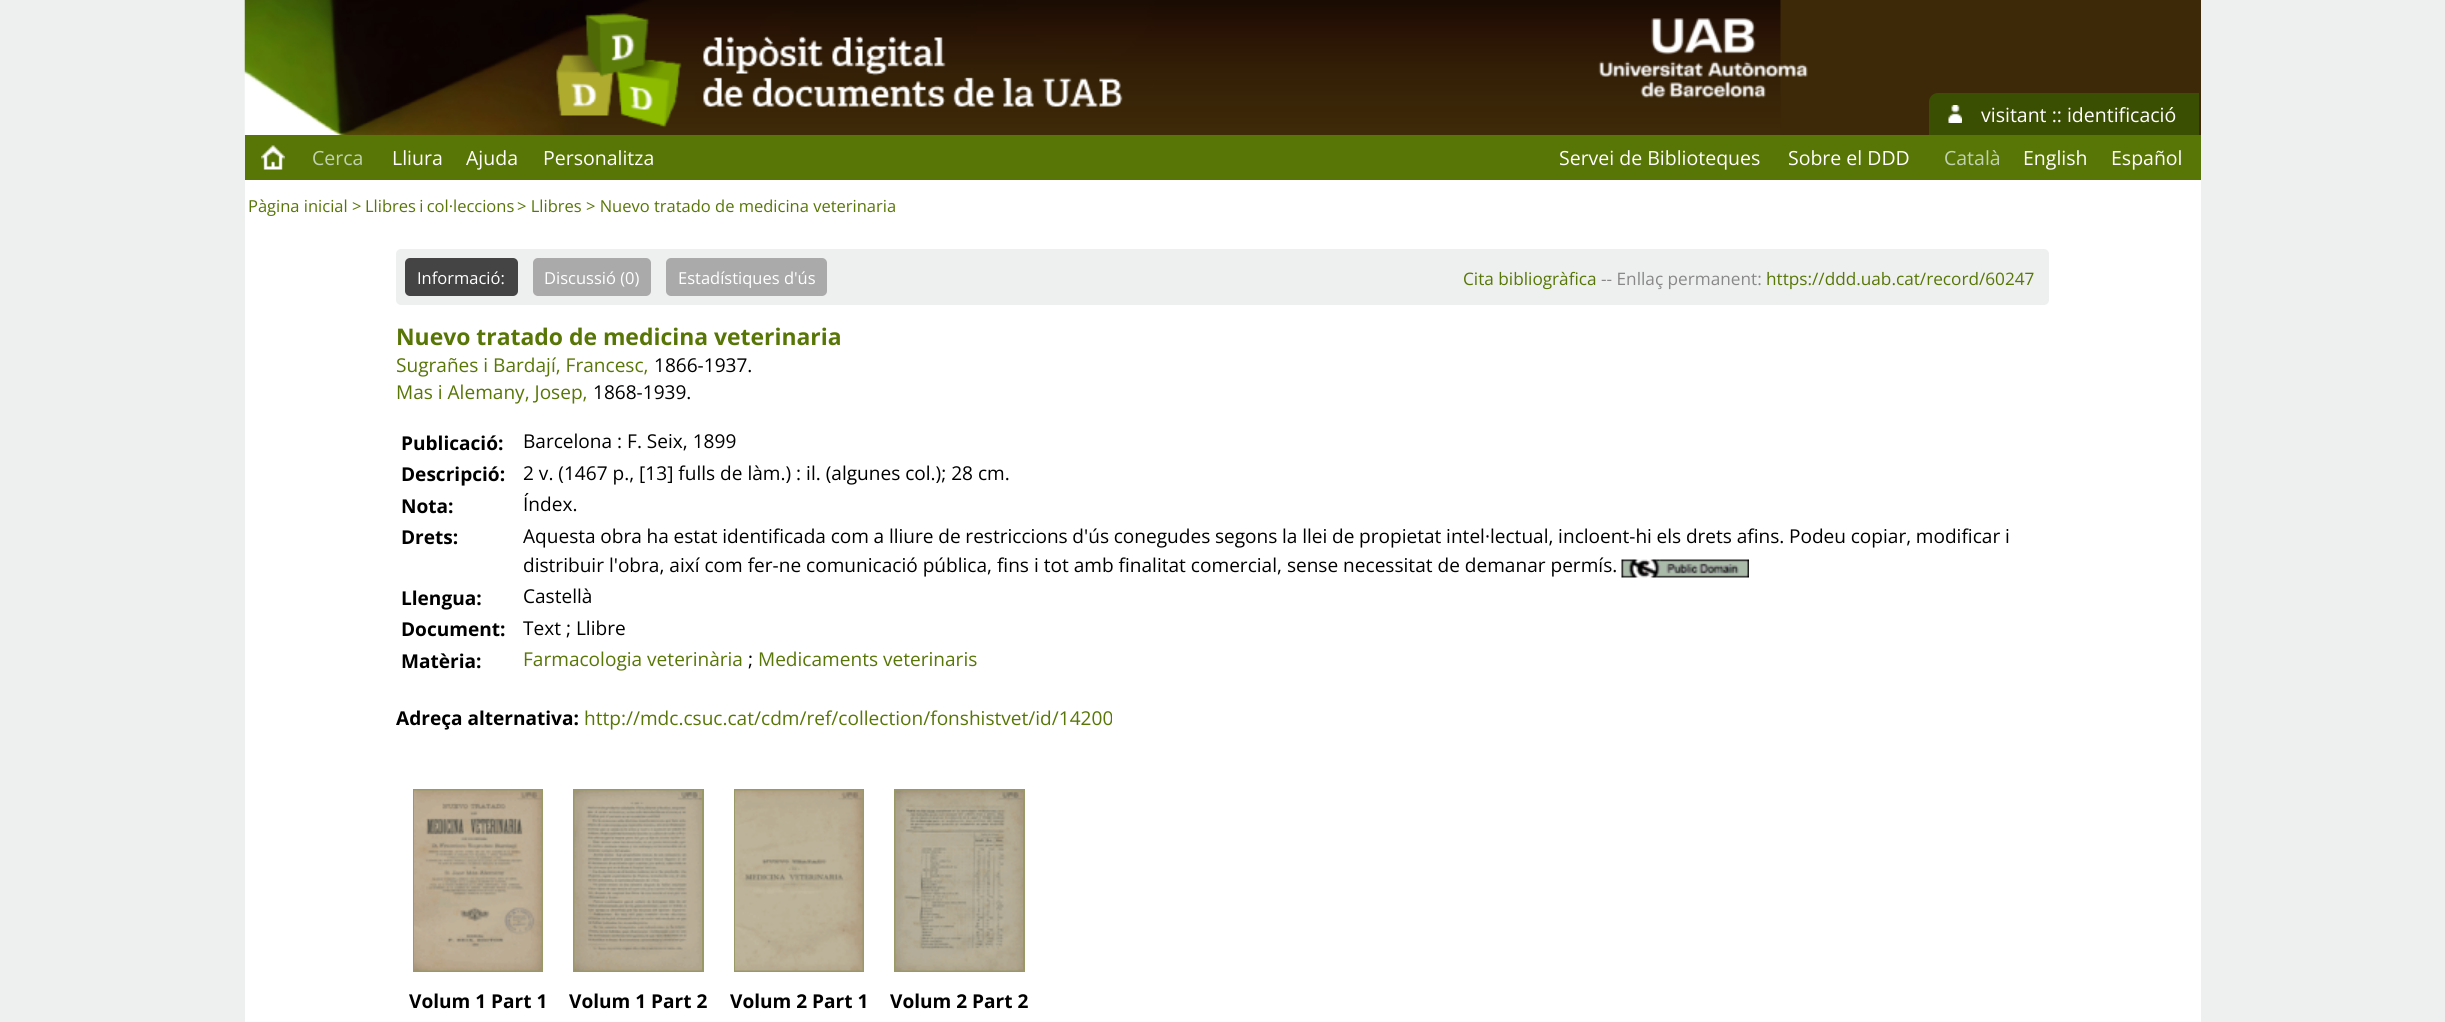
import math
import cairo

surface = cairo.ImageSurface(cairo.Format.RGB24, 2445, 1022)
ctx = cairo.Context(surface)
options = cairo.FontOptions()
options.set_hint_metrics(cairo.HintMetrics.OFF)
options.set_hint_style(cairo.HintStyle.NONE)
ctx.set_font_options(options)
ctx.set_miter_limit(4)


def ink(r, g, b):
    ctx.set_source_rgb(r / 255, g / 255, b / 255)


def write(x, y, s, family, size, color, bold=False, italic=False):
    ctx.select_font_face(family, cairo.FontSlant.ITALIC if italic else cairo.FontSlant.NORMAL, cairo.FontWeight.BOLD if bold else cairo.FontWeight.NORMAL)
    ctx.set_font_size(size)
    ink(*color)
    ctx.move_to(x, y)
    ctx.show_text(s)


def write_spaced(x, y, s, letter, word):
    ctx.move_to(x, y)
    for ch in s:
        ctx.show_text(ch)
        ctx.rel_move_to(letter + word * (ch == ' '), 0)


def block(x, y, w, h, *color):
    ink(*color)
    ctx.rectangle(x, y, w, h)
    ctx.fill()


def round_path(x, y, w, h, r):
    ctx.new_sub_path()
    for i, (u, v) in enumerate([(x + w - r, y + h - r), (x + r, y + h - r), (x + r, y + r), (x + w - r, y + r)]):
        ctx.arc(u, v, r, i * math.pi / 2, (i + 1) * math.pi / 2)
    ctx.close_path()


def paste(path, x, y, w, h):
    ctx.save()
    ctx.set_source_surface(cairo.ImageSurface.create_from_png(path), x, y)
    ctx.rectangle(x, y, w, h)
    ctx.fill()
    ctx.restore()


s1 = dict(family="Open Sans", size=19.5, color=(255, 255, 255))
s2 = dict(family="Open Sans", size=19.5, color=(193, 210, 176))
s3 = dict(family="Open Sans", size=16.5, color=(88, 118, 6))
s4 = dict(family="Open Sans", size=17.2, color=(88, 118, 6))
s5 = dict(family="Open Sans", size=17.2, color=(136, 136, 136))
s6 = dict(family="Open Sans", size=22.9, color=(88, 118, 6), bold=True)
s7 = dict(family="Open Sans", size=19.07, color=(88, 118, 6))
s8 = dict(family="Open Sans", size=19.07, color=(0, 0, 0))
s9 = dict(family="Open Sans", size=19.07, color=(0, 0, 0), bold=True)
s10 = dict(family="Open Sans", size=16.5, color=(255, 255, 255))

ink(238, 240, 239)
ctx.paint()
block(245, 180, 1956, 842, 255, 255, 255)
block(1780, 0, 421, 135, 61, 41, 8)
paste("pic2.png", 244, 0, 1537, 135)
paste("pic1.png", 1598, 18, 210, 80)
ink(59, 79, 3)
ctx.new_path()
ctx.move_to(1938, 93)
ctx.line_to(2199, 93)
ctx.line_to(2199, 135)
ctx.line_to(1929, 135)
ctx.line_to(1929, 102)
ctx.curve_to(1929, 97, 1933, 93, 1938, 93)
ctx.close_path()
ctx.fill()
paste("pic3.png", 1948, 105, 14, 18)
write(1981, 122, "visitant :: identificació", **s1)
block(245, 135, 1956, 45, 88, 118, 6)
paste("pic4.png", 261, 145, 24, 25)
write(312, 165, "Cerca", **s2)
write(392, 165, "Lliura", **s1)
write(466, 165, "Ajuda", **s1)
write(543, 165, "Personalitza", **s1)
write(1559, 165, "Servei de Biblioteques", **s1)
write(1788, 165, "Sobre el DDD", **s1)
write(1944, 165, "Català", **s2)
write(2023, 165, "English", **s1)
write(2111, 165, "Español", **s1)
write(248, 212, "Pàgina inicial >", **s3)
write_spaced(365, 212, "Llibres i col·leccions", 0, -1)
write(517, 212, "> Llibres > Nuevo tratado de medicina veterinaria", **s3)
ink(238, 240, 239)
round_path(396, 249, 1653, 56, 5)
ctx.fill()
write(1463, 285, "Cita bibliogràfica", **s4)
write(1601, 285, "-- Enllaç permanent:", **s5)
write(1766, 285, "https://ddd.uab.cat/record/60247", **s4)
write(396, 345, "Nuevo tratado de medicina veterinaria", **s6)
write(396, 372, "Sugrañes i Bardají, Francesc,", **s7)
write(654, 372, "1866-1937.", **s8)
write(396, 399, "Mas i Alemany, Josep,", **s7)
write(593, 399, "1868-1939.", **s8)
write(401, 450, "Publicació:", **s9)
write(523, 448, "Barcelona : F. Seix, 1899", **s8)
write(401, 481, "Descripció:", **s9)
write(523, 480, "2 v. (1467 p., [13] fulls de làm.) : il. (algunes col.); 28 cm.", **s8)
write(401, 513, "Nota:", **s9)
write(523, 511, "Índex.", **s8)
write(401, 544, "Drets:", **s9)
ctx.select_font_face("Open Sans")
write_spaced(523, 543, "Aquesta obra ha estat identificada com a lliure de restriccions d'ús conegudes segons la llei de propietat intel·lectual, incloent-hi els drets afins. Podeu copiar, modificar i", 0, -0.25)
write(523, 572, "distribuir l'obra, així com fer-ne comunicació pública, fins i tot amb finalitat comercial, sense necessitat de demanar permís.", **s8)
paste("pic5.png", 1621, 559, 128, 19)
write(401, 605, "Llengua:", **s9)
write(523, 603, "Castellà", **s8)
write(401, 636, "Document:", **s9)
write(523, 635, "Text ; Llibre", **s8)
write(401, 668, "Matèria:", **s9)
write(523, 666, "Farmacologia veterinària", **s7)
write(748, 666, ";", **s8)
write(758, 666, "Medicaments veterinaris", **s7)
write(396, 725, "Adreça alternativa:", **s9)
write(584, 725, "http://mdc.csuc.cat/cdm/ref/collection/fonshistvet/id/14200", **s7)
ctx.rectangle(414, 790, 128, 181)
ink(153, 153, 102)
ctx.stroke()
paste("pic6.png", 414, 790, 128, 181)
write(409, 1008, "Volum 1 Part 1", **s9)
ctx.rectangle(574, 790, 129, 181)
ink(153, 153, 102)
ctx.stroke()
paste("pic7.png", 574, 790, 128, 181)
write(569, 1008, "Volum 1 Part 2", **s9)
ctx.rectangle(735, 790, 128, 181)
ink(153, 153, 102)
ctx.stroke()
paste("pic8.png", 735, 790, 128, 181)
write(730, 1008, "Volum 2 Part 1", **s9)
ctx.rectangle(895, 790, 129, 181)
ink(153, 153, 102)
ctx.stroke()
paste("pic9.png", 895, 790, 128, 181)
write(890, 1008, "Volum 2 Part 2", **s9)
ink(68, 68, 68)
round_path(405, 258, 113, 38, 5)
ctx.fill()
write(417, 284, "Informació:", **s10)
ink(170, 170, 170)
round_path(533, 258, 118, 38, 5)
ctx.fill()
write(544, 284, "Discussió (0)", **s10)
ink(170, 170, 170)
round_path(666, 258, 161, 38, 5)
ctx.fill()
write(678, 284, "Estadístiques d'ús", **s10)
surface.write_to_png("screenshot.png")
